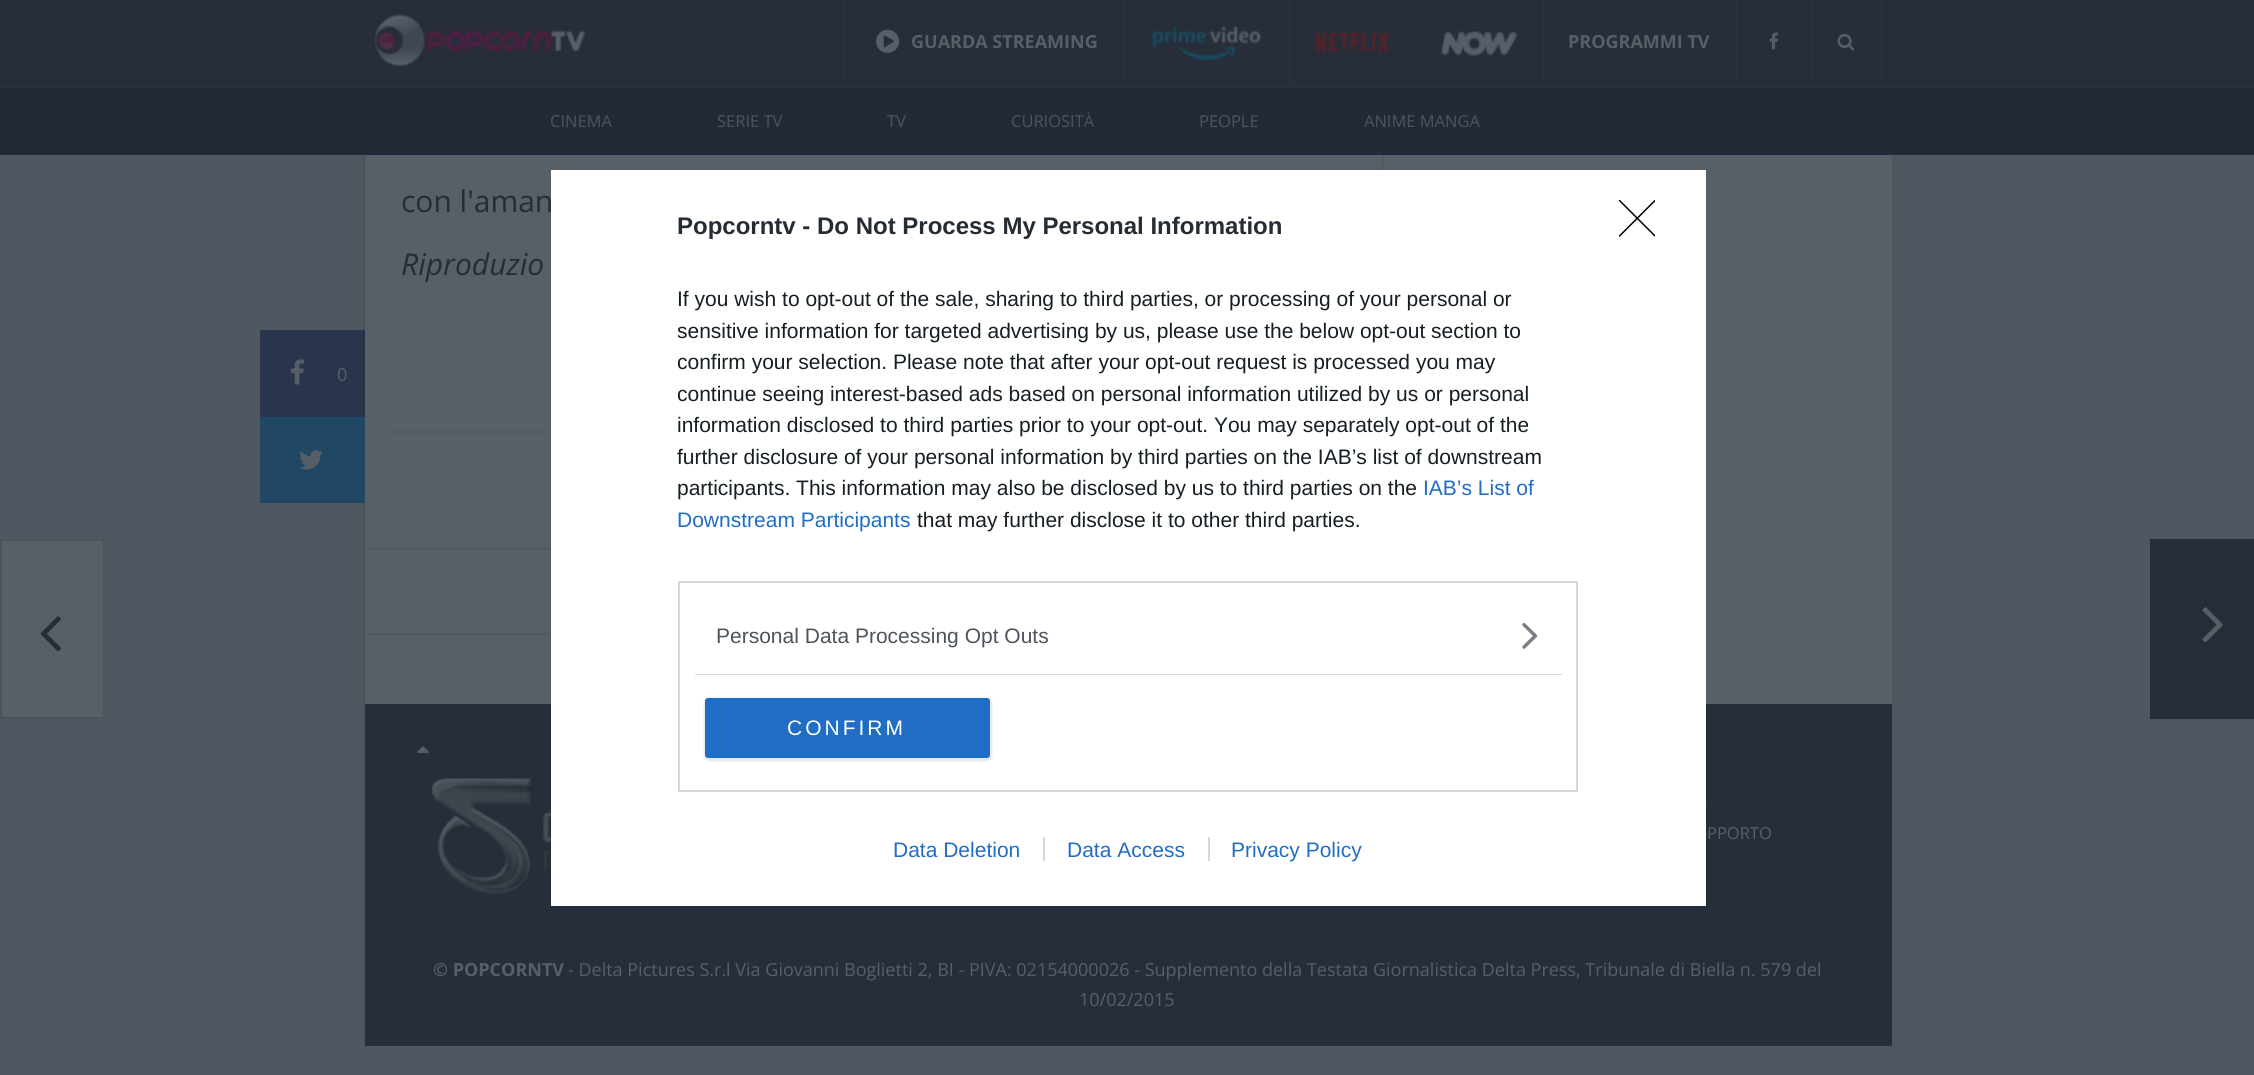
import math
import cairo

surface = cairo.ImageSurface(cairo.Format.RGB24, 2254, 1075)
ctx = cairo.Context(surface)
options = cairo.FontOptions()
options.set_hint_metrics(cairo.HintMetrics.OFF)
options.set_hint_style(cairo.HintStyle.NONE)
ctx.set_font_options(options)
ctx.set_miter_limit(4)


def ink(r, g, b):
    ctx.set_source_rgb(r / 255, g / 255, b / 255)


def write(x, y, s, family, size, color, bold=False, italic=False):
    ctx.select_font_face(family, cairo.FontSlant.ITALIC if italic else cairo.FontSlant.NORMAL, cairo.FontWeight.BOLD if bold else cairo.FontWeight.NORMAL)
    ctx.set_font_size(size)
    ink(*color)
    ctx.move_to(x, y)
    ctx.show_text(s)


def write_spaced(x, y, s, letter, word):
    ctx.move_to(x, y)
    for ch in s:
        ctx.show_text(ch)
        ctx.rel_move_to(letter + word * (ch == ' '), 0)


def block(x, y, w, h, *color):
    ink(*color)
    ctx.rectangle(x, y, w, h)
    ctx.fill()


def round_path(x, y, w, h, r):
    ctx.new_sub_path()
    for i, (u, v) in enumerate([(x + w - r, y + h - r), (x + r, y + h - r), (x + r, y + r), (x + w - r, y + r)]):
        ctx.arc(u, v, r, i * math.pi / 2, (i + 1) * math.pi / 2)
    ctx.close_path()


def blur_box(x, y, w, h, r, blur, alpha):
    ctx.push_group_with_content(cairo.Content.ALPHA)
    ctx.set_operator(cairo.Operator.SOURCE)
    for i in range(15, -16, -2):
        e = blur * i / 6
        if min(w, h) + 2 * e > 0:
            ctx.set_source_rgba(0, 0, 0, alpha * math.erfc((i - 1) / 8.5) / 2)
            round_path(x - e, y - e, w + 2 * e, h + 2 * e, max(0, min(r + e + blur * .6, min(w, h) / 2 + e)))
            ctx.fill()
    ctx.mask(ctx.pop_group())


def paste(path, x, y, w, h):
    ctx.save()
    ctx.set_source_surface(cairo.ImageSurface.create_from_png(path), x, y)
    ctx.rectangle(x, y, w, h)
    ctx.fill()
    ctx.restore()


s1 = dict(family="Open Sans", size=18, color=(89, 95, 103), bold=True)
s2 = dict(family="Open Sans", size=16.5, color=(78, 84, 93))
s3 = dict(family="Open Sans", size=30, color=(38, 44, 52))
s4 = dict(family="Open Sans", size=30, color=(38, 44, 52), italic=True)
s5 = dict(family="Open Sans", size=18, color=(89, 95, 103))
s6 = dict(family="Open Sans", size=16.5, color=(89, 95, 103))
s7 = dict(family="Liberation Sans", size=24, color=(38, 44, 52), bold=True)
s8 = dict(family="Liberation Sans", size=21, color=(20, 30, 35))
s9 = dict(family="Liberation Sans", size=21, color=(32, 109, 197))
s10 = dict(family="Liberation Sans", size=21, color=(78, 84, 93))

ink(81, 87, 96)
ctx.paint()
block(0, 0, 2254, 86, 39, 45, 57)
paste("pic1.png", 374, 13, 211, 55)
block(1124, 0, 2, 81, 40, 49, 61)
block(842, 0, 2, 81, 40, 49, 61)
paste("pic2.png", 876, 29, 24, 24)
write(911, 48, "GUARDA STREAMING", **s1)
block(1289, 0, 2, 86, 40, 49, 61)
paste("pic3.png", 1151, 26, 111, 35)
block(1415, 0, 2, 81, 40, 49, 61)
paste("pic4.png", 1315, 32, 74, 21)
block(1542, 0, 2, 81, 40, 49, 61)
paste("pic5.png", 1441, 31, 76, 25)
block(1736, 0, 2, 81, 40, 49, 61)
write(1568, 48, "PROGRAMMI TV", **s1)
block(1811, 0, 2, 81, 40, 49, 61)
paste("pic6.png", 1769, 32, 10, 18)
block(1881, 0, 2, 81, 40, 49, 61)
paste("pic7.png", 1837, 33, 18, 18)
block(0, 88, 2254, 67, 33, 42, 54)
block(0, 86, 2254, 2, 40, 49, 61)
write(550, 127, "CINEMA", **s2)
write(717, 127, "SERIE TV", **s2)
write(887, 127, "TV", **s2)
write(1011, 127, "CURIOSITÀ", **s2)
write(1199, 127, "PEOPLE", **s2)
write(1364, 127, "ANIME MANGA", **s2)
block(365, 155, 1527, 549, 89, 95, 103)
block(1892, 155, 1, 891, 77, 83, 92)
block(363, 155, 2, 891, 77, 83, 92)
block(1382, 155, 2, 15, 84, 90, 98)
write(401, 212, "con l'aman", **s3)
write(401, 275, "Riproduzio", **s4)
block(387, 431, 164, 2, 84, 90, 98)
block(365, 548, 186, 2, 84, 90, 98)
block(365, 633, 186, 2, 84, 90, 98)
block(260, 330, 103, 87, 40, 53, 77)
block(363, 330, 2, 87, 36, 49, 73)
paste("pic8.png", 290, 359, 14, 26)
write(337, 381, "0", **s5)
block(260, 417, 105, 86, 32, 71, 100)
paste("pic9.png", 299, 450, 24, 20)
ink(89, 95, 103)
ctx.rectangle(1, 540, 103, 178)
ctx.fill_preserve()
ink(77, 83, 92)
ctx.stroke()
paste("pic10.png", 40, 616, 21, 36)
block(2150, 539, 104, 180, 39, 45, 54)
paste("pic11.png", 2202, 607, 21, 36)
block(365, 704, 1527, 220, 37, 46, 58)
paste("pic12.png", 417, 746, 12, 7)
paste("pic13.png", 432, 778, 119, 116)
block(1706, 804, 133, 2, 40, 49, 61)
write(1707, 839, "PPORTO", **s6)
block(365, 926, 1527, 120, 37, 46, 58)
block(365, 924, 1527, 2, 40, 49, 61)
write(433, 976, "© POPCORNTV", **s1)
write(568, 976, "- Delta Pictures S.r.l Via Giovanni Boglietti 2, BI - PIVA: 02154000026 - Supplemento della Testata Giornalistica Delta Press, Tribunale di Biella n. 579 del", **s5)
write(1079, 1006, "10/02/2015", **s5)
block(551, 170, 1155, 736, 255, 255, 255)
write(677, 234, "Popcorntv - Do Not Process My Personal Information", **s7)
write(677, 306, "If you wish to opt-out of the sale, sharing to third parties, or processing of your personal or", **s8)
write(677, 338, "sensitive information for targeted advertising by us, please use the below opt-out section to", **s8)
write(677, 369, "confirm your selection. Please note that after your opt-out request is processed you may", **s8)
write(677, 401, "continue seeing interest-based ads based on personal information utilized by us or personal", **s8)
write(677, 432, "information disclosed to third parties prior to your opt-out. You may separately opt-out of the", **s8)
write(677, 464, "further disclosure of your personal information by third parties on the IAB’s list of downstream", **s8)
write(677, 495, "participants. This information may also be disclosed by us to third parties on the", **s8)
write(1423, 495, "IAB’s List of", **s9)
write(677, 527, "Downstream Participants", **s9)
write(917, 527, "that may further disclose it to other third parties.", **s8)
ctx.rectangle(679, 582, 898, 209)
ink(216, 216, 216)
ctx.stroke()
block(695, 674, 867, 1, 216, 216, 216)
write(716, 643, "Personal Data Processing Opt Outs", **s10)
paste("pic14.png", 1522, 622, 16, 27)
ink(0, 0, 0)
blur_box(704, 698, 288, 63, 5, 1, 0.1)
ink(32, 109, 197)
round_path(705, 698, 285, 60, 3)
ctx.fill()
ink(255, 255, 255)
write_spaced(787, 735, "CONFIRM", 3, 0)
ctx.save()
ctx.rectangle(1619, 200, 36, 37)
ctx.clip()
ctx.new_path()
ctx.move_to(1619.5, 200.5)
ctx.line_to(1655, 236)
ctx.move_to(1655, 200.5)
ctx.line_to(1619.5, 236)
ink(0, 0, 0)
ctx.set_line_width(1.5)
ctx.set_line_cap(cairo.LineCap.ROUND)
ctx.set_line_join(cairo.LineJoin.ROUND)
ctx.stroke()
ctx.restore()
write(893, 857, "Data Deletion", **s9)
write(1067, 857, "Data Access", **s9)
block(1043, 837, 2, 24, 216, 216, 216)
write(1231, 857, "Privacy Policy", **s9)
block(1208, 837, 2, 24, 216, 216, 216)
surface.write_to_png("screenshot.png")
